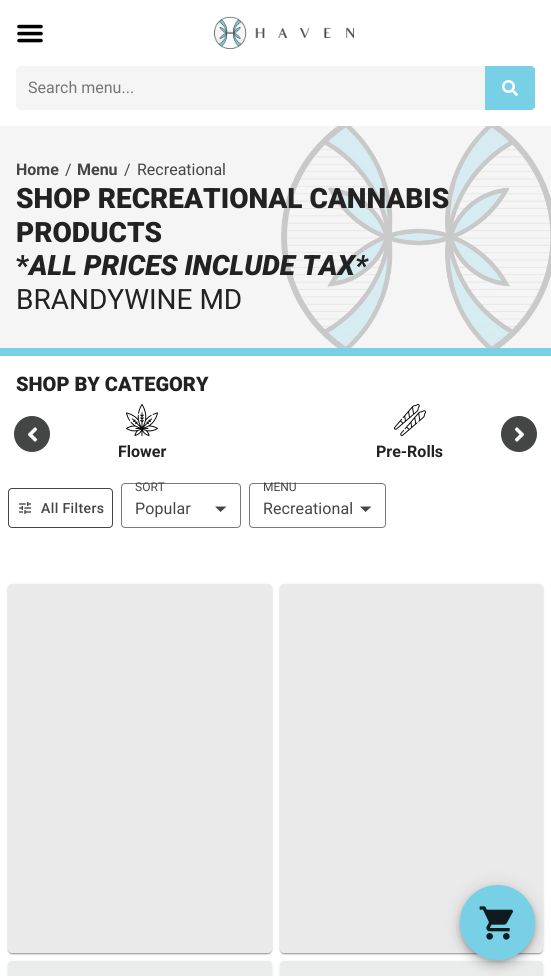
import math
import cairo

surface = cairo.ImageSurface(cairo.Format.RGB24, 551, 976)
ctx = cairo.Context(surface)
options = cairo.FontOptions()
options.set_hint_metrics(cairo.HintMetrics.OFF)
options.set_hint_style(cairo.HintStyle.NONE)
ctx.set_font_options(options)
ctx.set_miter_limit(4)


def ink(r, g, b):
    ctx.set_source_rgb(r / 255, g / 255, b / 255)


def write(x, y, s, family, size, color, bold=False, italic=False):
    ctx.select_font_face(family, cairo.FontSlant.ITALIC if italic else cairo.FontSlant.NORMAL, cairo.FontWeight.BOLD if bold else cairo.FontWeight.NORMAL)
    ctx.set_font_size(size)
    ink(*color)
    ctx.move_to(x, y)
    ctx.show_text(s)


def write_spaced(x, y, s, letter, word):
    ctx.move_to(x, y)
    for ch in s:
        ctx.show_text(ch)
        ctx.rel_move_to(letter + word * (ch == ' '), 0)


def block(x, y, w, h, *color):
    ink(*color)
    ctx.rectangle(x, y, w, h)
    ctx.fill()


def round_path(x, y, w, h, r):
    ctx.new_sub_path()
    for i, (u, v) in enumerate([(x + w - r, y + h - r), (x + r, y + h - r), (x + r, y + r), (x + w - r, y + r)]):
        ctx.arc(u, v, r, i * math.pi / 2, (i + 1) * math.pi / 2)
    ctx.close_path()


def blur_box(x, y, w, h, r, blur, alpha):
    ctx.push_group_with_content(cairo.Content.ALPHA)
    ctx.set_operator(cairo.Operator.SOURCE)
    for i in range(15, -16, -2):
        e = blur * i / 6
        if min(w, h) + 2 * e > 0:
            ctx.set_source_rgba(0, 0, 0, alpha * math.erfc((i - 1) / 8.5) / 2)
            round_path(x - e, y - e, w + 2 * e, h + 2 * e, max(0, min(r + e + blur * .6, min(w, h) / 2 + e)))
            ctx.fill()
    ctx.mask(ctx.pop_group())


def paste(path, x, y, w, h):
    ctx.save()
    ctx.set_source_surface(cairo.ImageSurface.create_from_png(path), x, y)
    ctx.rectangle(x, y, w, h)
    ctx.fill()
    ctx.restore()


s1 = dict(family="Roboto", size=16, color=(118, 118, 118))
s2 = dict(family="Roboto", size=16, color=(68, 69, 69), bold=True)
s3 = dict(family="Roboto", size=16, color=(68, 69, 69))
s4 = dict(family="Roboto Black", size=28, color=(34, 34, 34))
s5 = dict(family="Roboto Black", size=28, color=(34, 34, 34), italic=True)
s6 = dict(family="Roboto", size=28, color=(34, 34, 34))
s7 = dict(family="Roboto Black", size=20, color=(34, 34, 34))
s8 = dict(family="Roboto", size=16, color=(34, 34, 34), bold=True)
s9 = dict(family="Roboto", size=12, color=(68, 69, 69))

ink(255, 255, 255)
ctx.paint()
paste("pic1.png", 17, 24, 26, 19)
paste("pic2.png", 214, 16, 140, 33)
ink(245, 245, 245)
round_path(16, 66, 519, 44, 4)
ctx.fill()
write(28, 93, "Search menu...", **s1)
ink(119, 208, 229)
ctx.new_path()
ctx.move_to(485, 66)
ctx.line_to(531, 66)
ctx.curve_to(533, 66, 535, 68, 535, 70)
ctx.line_to(535, 106)
ctx.curve_to(535, 108, 533, 110, 531, 110)
ctx.line_to(485, 110)
ctx.close_path()
ctx.fill()
paste("pic3.png", 502, 80, 16, 16)
block(0, 126, 551, 222, 245, 245, 245)
block(0, 348, 551, 8, 119, 208, 229)
paste("pic4.png", 281, 126, 270, 222)
write(16, 175, "Home", **s2)
write(65, 175, "/", **s3)
write(77, 175, "Menu", **s2)
write(124, 175, "/", **s3)
write(137, 175, "Recreational", **s3)
write(16, 208, "SHOP RECREATIONAL CANNABIS", **s4)
write(16, 242, "PRODUCTS", **s4)
write(16, 275, "*", **s4)
write(29, 275, "ALL PRICES INCLUDE TAX*", **s5)
write(16, 309, "BRANDYWINE MD", **s6)
write(16, 391, "SHOP BY CATEGORY", **s7)
ink(68, 69, 69)
ctx.new_path()
ctx.arc(32, 434, 18, 0, 2 * math.pi)
ctx.fill()
paste("pic5.png", 27, 427, 11, 15)
paste("pic6.png", 126, 404, 32, 32)
write(118, 457, "Flower", **s8)
paste("pic7.png", 394, 404, 32, 32)
write(376, 457, "Pre-Rolls", **s8)
ink(68, 69, 69)
ctx.new_path()
ctx.arc(519, 434, 18, 0, 2 * math.pi)
ctx.fill()
paste("pic8.png", 514, 427, 11, 15)
round_path(8.5, 488.5, 104, 39, 3.5)
ctx.set_line_width(1)
ctx.stroke()
paste("pic9.png", 19, 502, 12, 12)
ctx.select_font_face("Roboto Medium")
ctx.set_font_size(14)
write_spaced(41, 513, "All Filters", 0.4, 0)
ctx.new_path()
ctx.move_to(215, 506.5)
ctx.line_to(220.5, 512)
ctx.line_to(226.5, 506.5)
ctx.close_path()
ctx.fill()
round_path(121.5, 483.5, 119, 44, 3.5)
ink(120, 121, 121)
ctx.stroke()
write(135, 491, "SORT", **s9)
ctx.set_font_size(16)
write_spaced(135, 514, "Popular", 0.1, 0)
ctx.new_path()
ctx.move_to(360, 506.5)
ctx.line_to(365.5, 512)
ctx.line_to(371.5, 506.5)
ctx.close_path()
ctx.fill()
round_path(249.5, 483.5, 136, 44, 3.5)
ink(120, 121, 121)
ctx.stroke()
write(263, 491, "MENU", **s9)
ctx.set_font_size(16)
write_spaced(263, 514, "Recreational", 0.1, 0)
ink(0, 0, 0)
blur_box(8, 585, 264, 369, 4, 1.5, 0.12)
blur_box(8, 585, 264, 369, 4, 0.5, 0.14)
blur_box(9, 587, 262, 367, 3, 0.5, 0.2)
ink(255, 255, 255)
round_path(8, 584, 264, 369, 4)
ctx.fill()
ctx.set_source_rgba(0.267, 0.271, 0.271, 0.11)
round_path(8, 584, 264, 369, 4)
ctx.fill()
ink(0, 0, 0)
blur_box(280, 585, 263, 369, 4, 1.5, 0.12)
blur_box(280, 585, 263, 369, 4, 0.5, 0.14)
blur_box(281, 587, 261, 367, 3, 0.5, 0.2)
ink(255, 255, 255)
round_path(280, 584, 263, 369, 4)
ctx.fill()
ctx.set_source_rgba(0.267, 0.271, 0.271, 0.11)
round_path(280, 584, 263, 369, 4)
ctx.fill()
ink(0, 0, 0)
blur_box(8, 962, 264, 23, 4, 1.5, 0.12)
ink(234, 235, 235)
round_path(8, 961, 264, 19, 4)
ctx.fill()
ink(0, 0, 0)
blur_box(280, 962, 263, 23, 4, 1.5, 0.12)
ink(234, 235, 235)
round_path(280, 961, 263, 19, 4)
ctx.fill()
ink(0, 0, 0)
blur_box(460, 886, 75, 75, 37.5, 9, 0.12)
blur_box(460, 891, 75, 75, 37.5, 5, 0.14)
blur_box(461, 889, 73, 73, 36.5, 2.5, 0.2)
ink(119, 208, 229)
ctx.arc(497.5, 922.5, 37.5, 0, 2 * math.pi)
ctx.fill()
paste("pic10.png", 479, 906, 34, 34)
surface.write_to_png("screenshot.png")
